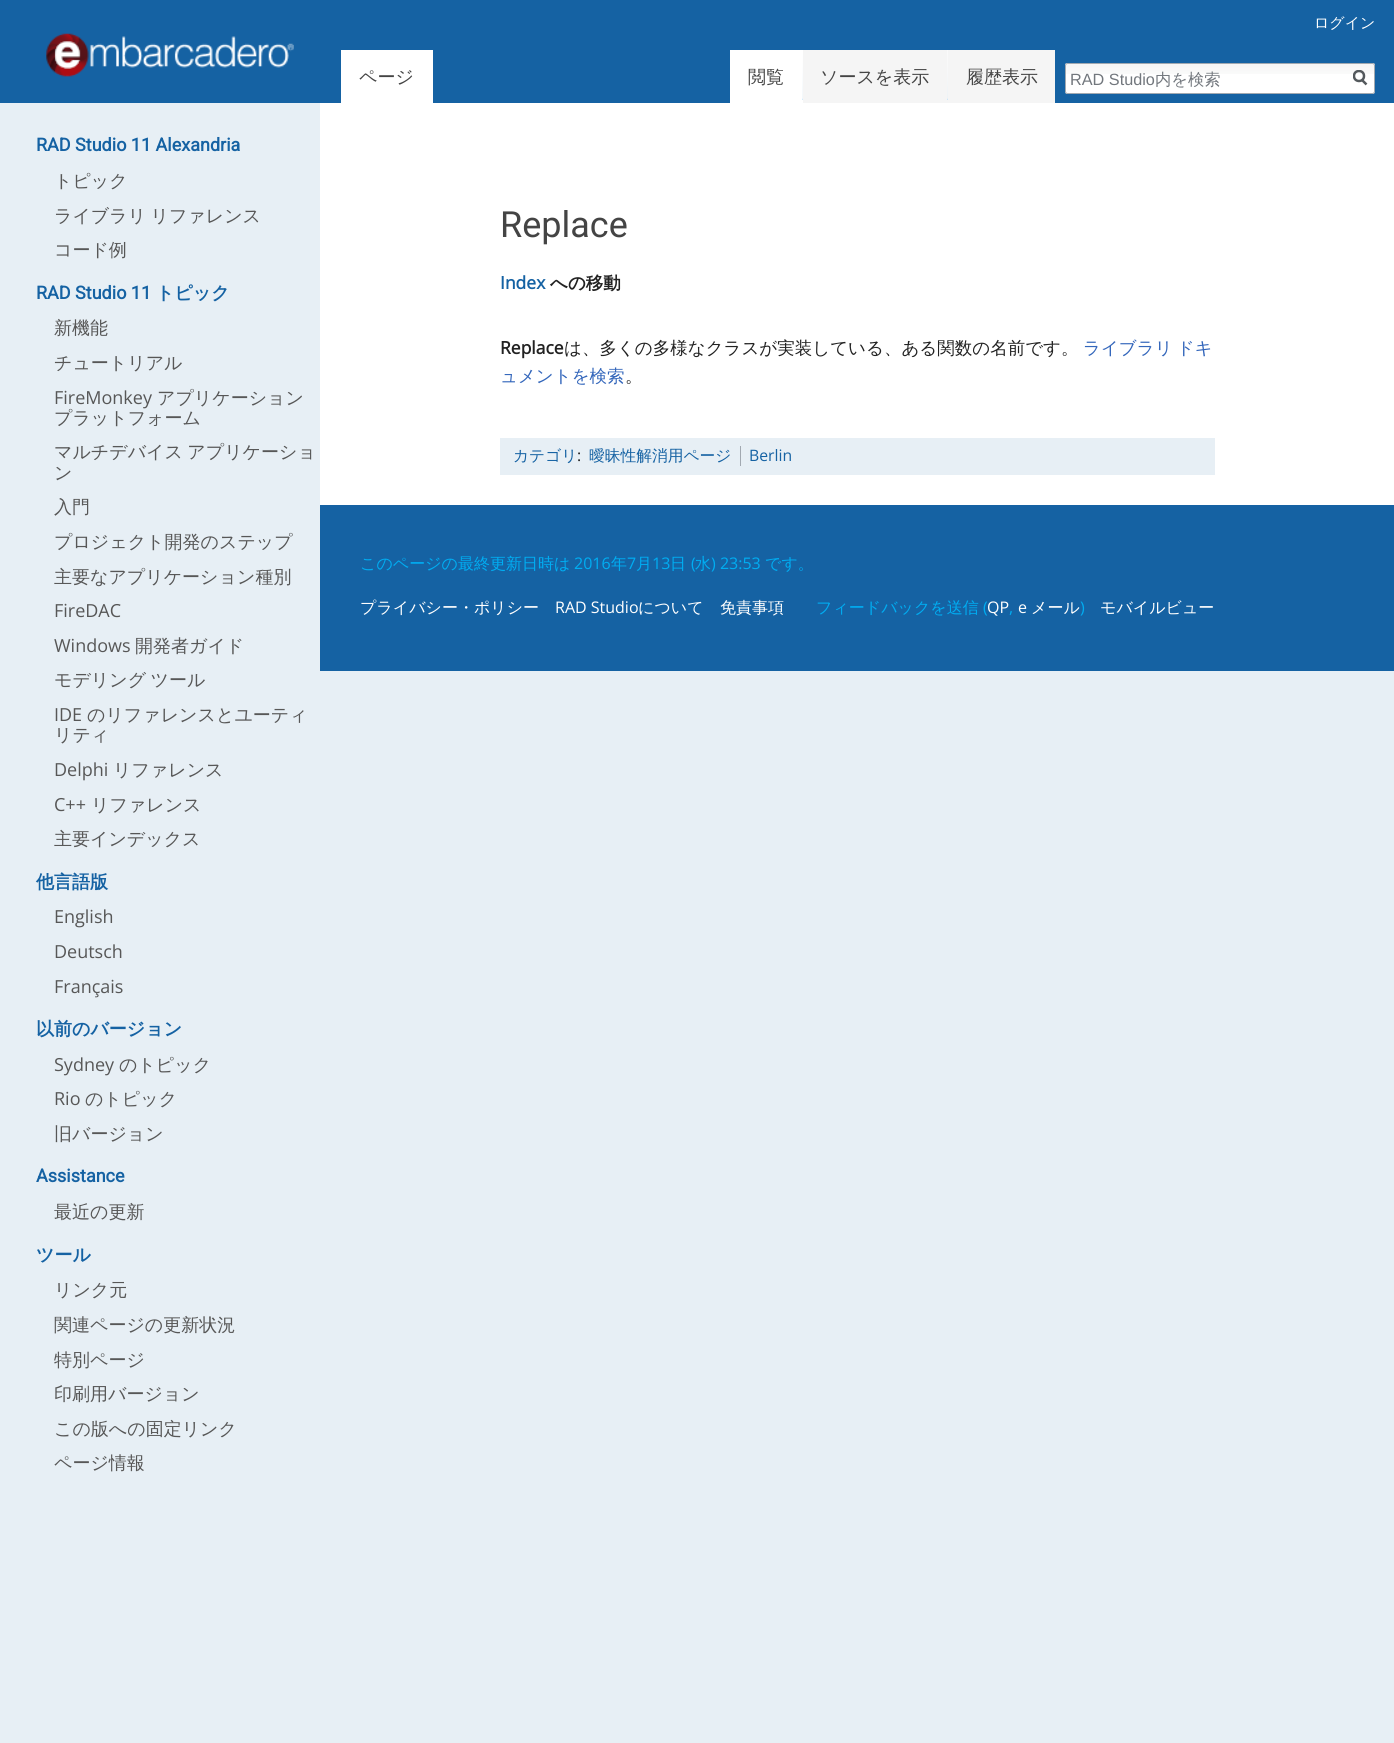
import math
import cairo

surface = cairo.ImageSurface(cairo.Format.RGB24, 1394, 1743)
ctx = cairo.Context(surface)
options = cairo.FontOptions()
options.set_hint_metrics(cairo.HintMetrics.OFF)
options.set_hint_style(cairo.HintStyle.NONE)
ctx.set_font_options(options)
ctx.set_miter_limit(4)


def ink(r, g, b):
    ctx.set_source_rgb(r / 255, g / 255, b / 255)


def write(x, y, s, family, size, color, bold=False, italic=False):
    ctx.select_font_face(family, cairo.FontSlant.ITALIC if italic else cairo.FontSlant.NORMAL, cairo.FontWeight.BOLD if bold else cairo.FontWeight.NORMAL)
    ctx.set_font_size(size)
    ink(*color)
    ctx.move_to(x, y)
    ctx.show_text(s)


def write_spaced(x, y, s, letter, word):
    ctx.move_to(x, y)
    for ch in s:
        ctx.show_text(ch)
        ctx.rel_move_to(letter + word * (ch == ' '), 0)


def block(x, y, w, h, *color):
    ink(*color)
    ctx.rectangle(x, y, w, h)
    ctx.fill()


def round_path(x, y, w, h, r):
    ctx.new_sub_path()
    for i, (u, v) in enumerate([(x + w - r, y + h - r), (x + r, y + h - r), (x + r, y + r), (x + w - r, y + r)]):
        ctx.arc(u, v, r, i * math.pi / 2, (i + 1) * math.pi / 2)
    ctx.close_path()


def paste(path, x, y, w, h):
    ctx.save()
    ctx.set_source_surface(cairo.ImageSurface.create_from_png(path), x, y)
    ctx.rectangle(x, y, w, h)
    ctx.fill()
    ctx.restore()


s1 = dict(family="WenQuanYi Zen Hei Medium", size=15, color=(255, 255, 255))
s2 = dict(family="WenQuanYi Zen Hei Medium", size=18, color=(68, 68, 68))
s3 = dict(family="Liberation Sans", size=16.25, color=(114, 119, 125))
s4 = dict(family="WenQuanYi Zen Hei Medium", size=16.25, color=(114, 119, 125))
s5 = dict(family="Roboto", size=18, color=(21, 98, 163), bold=True)
s6 = dict(family="WenQuanYi Zen Hei Medium", size=18, color=(87, 87, 87))
s7 = dict(family="WenQuanYi Zen Hei", size=18, color=(21, 98, 163), bold=True)
s8 = dict(family="Open Sans", size=18, color=(87, 87, 87))
s9 = dict(family="Roboto", size=36, color=(68, 68, 68))
s10 = dict(family="Open Sans", size=17.5, color=(21, 98, 163), bold=True)
s11 = dict(family="WenQuanYi Zen Hei", size=17.5, color=(34, 34, 34), bold=True)
s12 = dict(family="Open Sans", size=17.5, color=(34, 34, 34), bold=True)
s13 = dict(family="WenQuanYi Zen Hei Medium", size=17.5, color=(34, 34, 34))
s14 = dict(family="WenQuanYi Zen Hei Medium", size=17.5, color=(51, 102, 187))
s15 = dict(family="WenQuanYi Zen Hei Medium", size=15.75, color=(21, 98, 163))
s16 = dict(family="Open Sans", size=15.75, color=(34, 34, 34))
s17 = dict(family="Open Sans", size=15.75, color=(21, 98, 163))
s18 = dict(family="WenQuanYi Zen Hei Medium", size=16, color=(0, 173, 242))
s19 = dict(family="Open Sans", size=16, color=(0, 173, 242))
s20 = dict(family="WenQuanYi Zen Hei Medium", size=16, color=(255, 255, 255))
s21 = dict(family="Open Sans", size=16, color=(255, 255, 255))

ink(231, 239, 245)
ctx.paint()
block(0, 0, 1394, 103, 21, 98, 163)
write(1314, 28, "ログイン", **s1)
block(341, 50, 92, 53, 255, 255, 255)
write(359, 83, "ページ", **s2)
block(730, 50, 73, 53, 255, 255, 255)
write(748, 83, "閲覧", **s2)
paste("pic1.png", 802, 50, 1, 50)
block(803, 50, 252, 53, 245, 245, 245)
write(820, 83, "ソースを表示", **s2)
paste("pic2.png", 947, 50, 1, 50)
write(966, 83, "履歴表示", **s2)
ink(255, 255, 255)
round_path(1065, 63, 310, 31, 2.5)
ctx.fill()
paste("pic3.png", 1065, 63, 310, 11)
round_path(1065.5, 63.5, 309, 30, 2)
ink(162, 169, 177)
ctx.set_line_width(1)
ctx.stroke()
write(1070, 85, "RAD Studio", **s3)
write(1155, 85, "内を検索", **s4)
ctx.new_path()
ctx.move_to(1366.5, 84.5)
ctx.line_to(1361.5, 79.5)
ink(84, 89, 93)
ctx.set_line_width(2.5)
ctx.stroke()
ctx.save()
ctx.rectangle(1353, 70, 15, 16)
ctx.clip()
ctx.arc(1359, 76, 5, 0, 2 * math.pi)
ctx.stroke()
ctx.restore()
paste("pic4.png", 46, 33, 248, 44)
write(36, 151, "RAD Studio 11 Alexandria", **s5)
write(54, 187, "トピック", **s6)
write_spaced(54, 222, "ライブラリ リファレンス", 0, -1)
write(54, 256, "コード例", **s6)
write(36, 299, "RAD Studio 11", **s5)
write(156, 299, "トピック", **s7)
write(54, 334, "新機能", **s6)
write(54, 369, "チュートリアル", **s6)
write(54, 404, "FireMonkey", **s8)
write(157, 404, "アプリケーション", **s6)
write(54, 424, "プラットフォーム", **s6)
write_spaced(54, 458, "マルチデバイス アプリケーショ", 0, -1)
write(54, 479, "ン", **s6)
write(54, 513, "入門", **s6)
write(54, 548, "プロジェクト開発のステップ", **s6)
write(54, 583, "主要なアプリケーション種別", **s6)
write(54, 617, "FireDAC", **s8)
write(54, 652, "Windows", **s8)
write(135, 652, "開発者ガイド", **s6)
write_spaced(54, 686, "モデリング ツール", 0, -1)
write(54, 721, "IDE", **s8)
write(87, 721, "のリファレンスとユーティ", **s6)
write(54, 741, "リティ", **s6)
write(54, 776, "Delphi", **s8)
write(113, 776, "リファレンス", **s6)
write(54, 811, "C++", **s8)
write(91, 811, "リファレンス", **s6)
write(54, 845, "主要インデックス", **s6)
write(36, 888, "他言語版", **s7)
write(54, 923, "English", **s8)
write(54, 958, "Deutsch", **s8)
write(54, 993, "Français", **s8)
write(36, 1035, "以前のバージョン", **s7)
write(54, 1071, "Sydney", **s8)
write(119, 1071, "のトピック", **s6)
write(54, 1105, "Rio", **s8)
write(85, 1105, "のトピック", **s6)
write(54, 1140, "旧バージョン", **s6)
write(36, 1182, "Assistance", **s5)
write(54, 1218, "最近の更新", **s6)
write(36, 1261, "ツール", **s7)
write(54, 1296, "リンク元", **s6)
write(54, 1331, "関連ページの更新状況", **s6)
write(54, 1366, "特別ページ", **s6)
write(54, 1400, "印刷用バージョン", **s6)
write(54, 1435, "この版への固定リンク", **s6)
write(54, 1469, "ページ情報", **s6)
block(320, 103, 1074, 402, 255, 255, 255)
write(500, 237, "Replace", **s9)
write(500, 289, "Index", **s10)
write(550, 289, "への移動", **s11)
write(500, 354, "Replace", **s12)
write(564, 354, "は、多くの多様なクラスが実装している、ある関数の名前です。", **s13)
ink(51, 102, 187)
write_spaced(1083, 354, "ライブラリ ドキ", 0, -1)
write(500, 382, "ュメントを検索", **s14)
write(625, 382, "。", **s13)
block(500, 438, 715, 37, 231, 239, 245)
write(513, 461, "カテゴリ", **s15)
write(577, 461, ":", **s16)
write(589, 461, "曖昧性解消用ページ", **s15)
block(740, 446, 1, 20, 162, 169, 177)
write(749, 461, "Berlin", **s17)
block(320, 505, 1074, 166, 21, 98, 163)
write(360, 569, "このページの最終更新日時は", **s18)
write(574, 569, "2016", **s19)
write(611, 569, "年", **s18)
write(627, 569, "7", **s19)
write(636, 569, "月", **s18)
write(652, 569, "13", **s19)
write(670, 569, "日", **s18)
write(691, 569, "(", **s19)
write(695, 569, "水", **s18)
write(711, 569, ") 23:53", **s19)
write(765, 569, "です。", **s18)
write(360, 613, "プライバシー・ポリシー", **s20)
write(555, 613, "RAD Studio", **s21)
write(638, 613, "について", **s20)
write(720, 613, "免責事項", **s20)
write(816, 613, "フィードバックを送信", **s18)
write(983, 613, "(", **s19)
write(987, 613, "QP", **s21)
write(1009, 613, ",", **s19)
write(1018, 613, "e", **s21)
write(1031, 613, "メール", **s20)
write(1080, 613, ")", **s19)
write(1100, 613, "モバイルビュー", **s20)
surface.write_to_png("screenshot.png")
